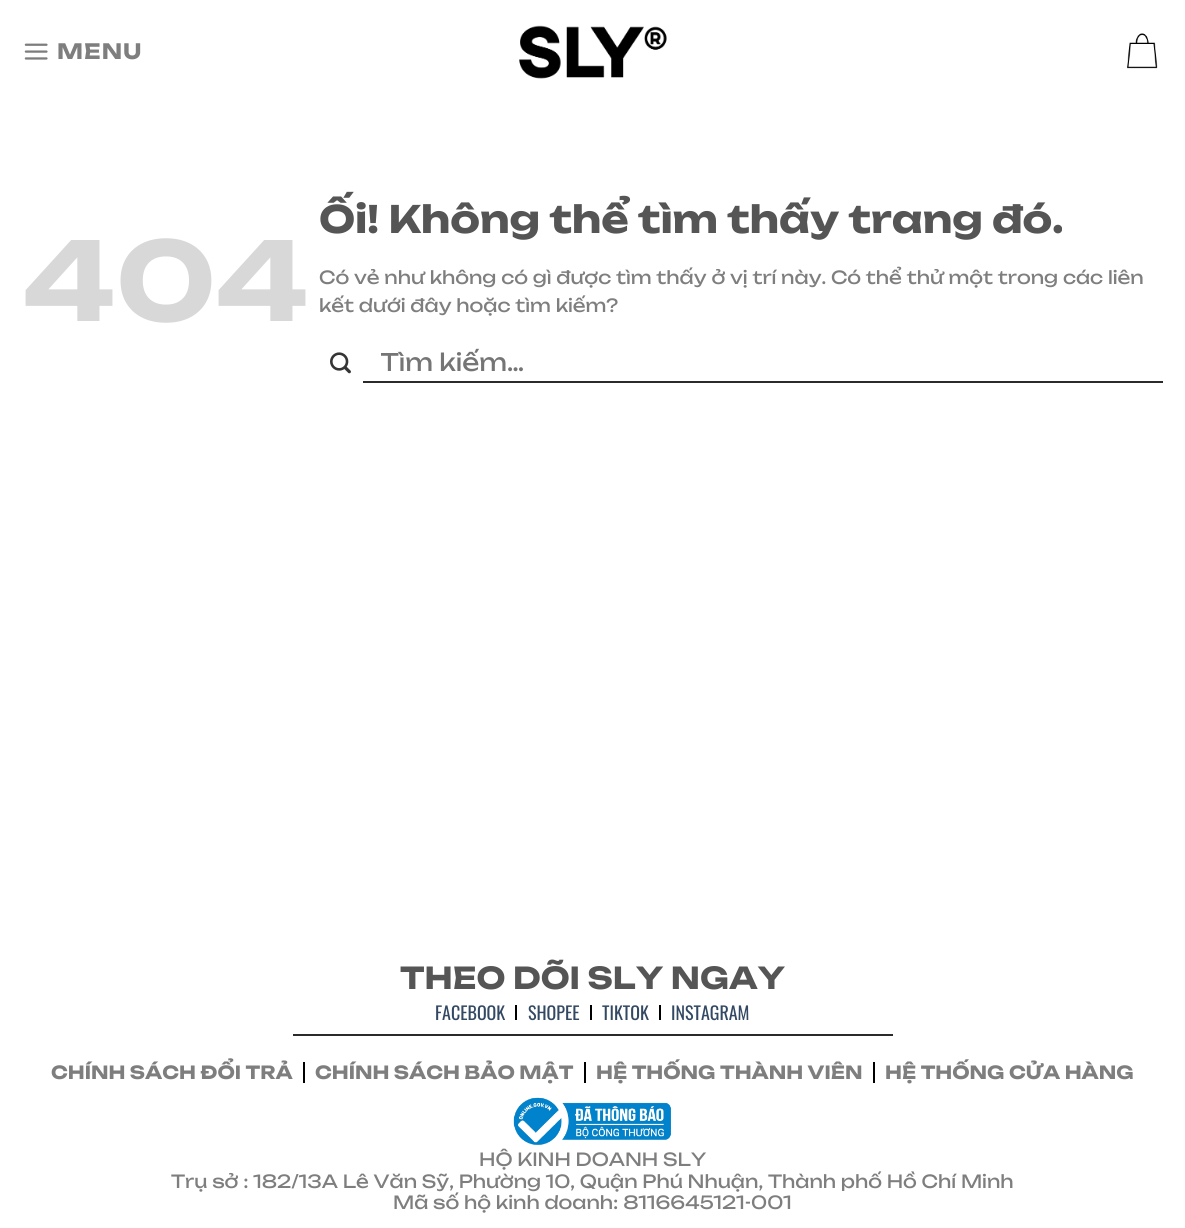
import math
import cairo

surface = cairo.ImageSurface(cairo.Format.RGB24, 1185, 1228)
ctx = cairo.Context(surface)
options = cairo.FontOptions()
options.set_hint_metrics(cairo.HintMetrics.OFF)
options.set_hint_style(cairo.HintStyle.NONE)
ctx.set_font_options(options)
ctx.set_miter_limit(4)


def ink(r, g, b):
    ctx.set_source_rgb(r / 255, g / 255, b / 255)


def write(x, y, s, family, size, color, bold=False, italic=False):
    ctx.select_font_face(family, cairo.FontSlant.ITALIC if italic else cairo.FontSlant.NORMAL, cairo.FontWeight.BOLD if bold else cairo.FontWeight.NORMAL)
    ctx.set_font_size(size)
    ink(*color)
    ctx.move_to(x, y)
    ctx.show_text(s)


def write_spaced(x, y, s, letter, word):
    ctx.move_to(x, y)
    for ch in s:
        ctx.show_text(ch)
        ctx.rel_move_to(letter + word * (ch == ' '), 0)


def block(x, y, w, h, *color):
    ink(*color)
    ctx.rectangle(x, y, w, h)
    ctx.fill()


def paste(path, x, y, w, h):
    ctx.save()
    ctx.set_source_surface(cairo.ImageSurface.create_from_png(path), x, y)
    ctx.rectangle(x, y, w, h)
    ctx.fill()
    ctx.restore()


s1 = dict(family="Unbounded", size=108, color=(216, 216, 216), bold=True)
s2 = dict(family="Unbounded", size=37.5, color=(85, 85, 85), bold=True)
s3 = dict(family="Unbounded", size=18, color=(126, 126, 126))
s4 = dict(family="Unbounded", size=24, color=(117, 117, 117))
s5 = dict(family="Unbounded", size=30, color=(85, 85, 85), bold=True)
s6 = dict(family="Oswald", size=18, color=(51, 72, 98))
s7 = dict(family="Unbounded", size=18, color=(126, 126, 126), bold=True)

ink(255, 255, 255)
ctx.paint()
paste("pic1.png", 24, 43, 24, 17)
ctx.select_font_face("Unbounded", cairo.FontSlant.NORMAL, cairo.FontWeight.BOLD)
ctx.set_font_size(21)
ink(126, 126, 126)
write_spaced(57, 59, "MENU", 1, 0)
paste("pic2.png", 519, 25, 148, 54)
paste("pic3.png", 1127, 33, 31, 36)
write(23, 321, "404", **s1)
write(319, 233, "Ối! Không thể tìm thấy trang đó.", **s2)
write(319, 284, "Có vẻ như không có gì được tìm thấy ở vị trí này. Có thể thử một trong các liên", **s3)
write(319, 312, "kết dưới đây hoặc tìm kiếm?", **s3)
paste("pic4.png", 330, 352, 21, 22)
block(363, 381, 800, 2, 43, 43, 43)
ctx.save()
ctx.rectangle(381, 348, 758, 30)
ctx.clip()
write(380, 371, "Tìm kiếm…", **s4)
ctx.restore()
write(400, 989, "THEO DÕI SLY NGAY", **s5)
write(435, 1020, "FACEBOOK", **s6)
block(515, 1005, 2, 15, 0, 0, 0)
write(528, 1020, "SHOPEE", **s6)
block(590, 1005, 2, 15, 0, 0, 0)
write(602, 1020, "TIKTOK", **s6)
block(659, 1005, 2, 15, 0, 0, 0)
write(671, 1020, "INSTAGRAM", **s6)
block(293, 1034, 600, 2, 43, 43, 43)
write(51, 1079, "CHÍNH SÁCH ĐỔI TRẢ", **s7)
block(303, 1062, 2, 21, 0, 0, 0)
write(315, 1079, "CHÍNH SÁCH BẢO MẬT", **s7)
block(584, 1062, 2, 21, 0, 0, 0)
write(596, 1079, "HỆ THỐNG THÀNH VIÊN", **s7)
block(873, 1062, 2, 21, 0, 0, 0)
write(885, 1079, "HỆ THỐNG CỬA HÀNG", **s7)
paste("pic5.png", 513, 1097, 158, 48)
write(479, 1166, "HỘ KINH DOANH SLY", **s3)
write(171, 1188, "Trụ sở : 182/13A Lê Văn Sỹ, Phường 10, Quận Phú Nhuận, Thành phố Hồ Chí Minh", **s3)
write(393, 1209, "Mã số hộ kinh doanh: 8116645121-001", **s3)
surface.write_to_png("screenshot.png")
